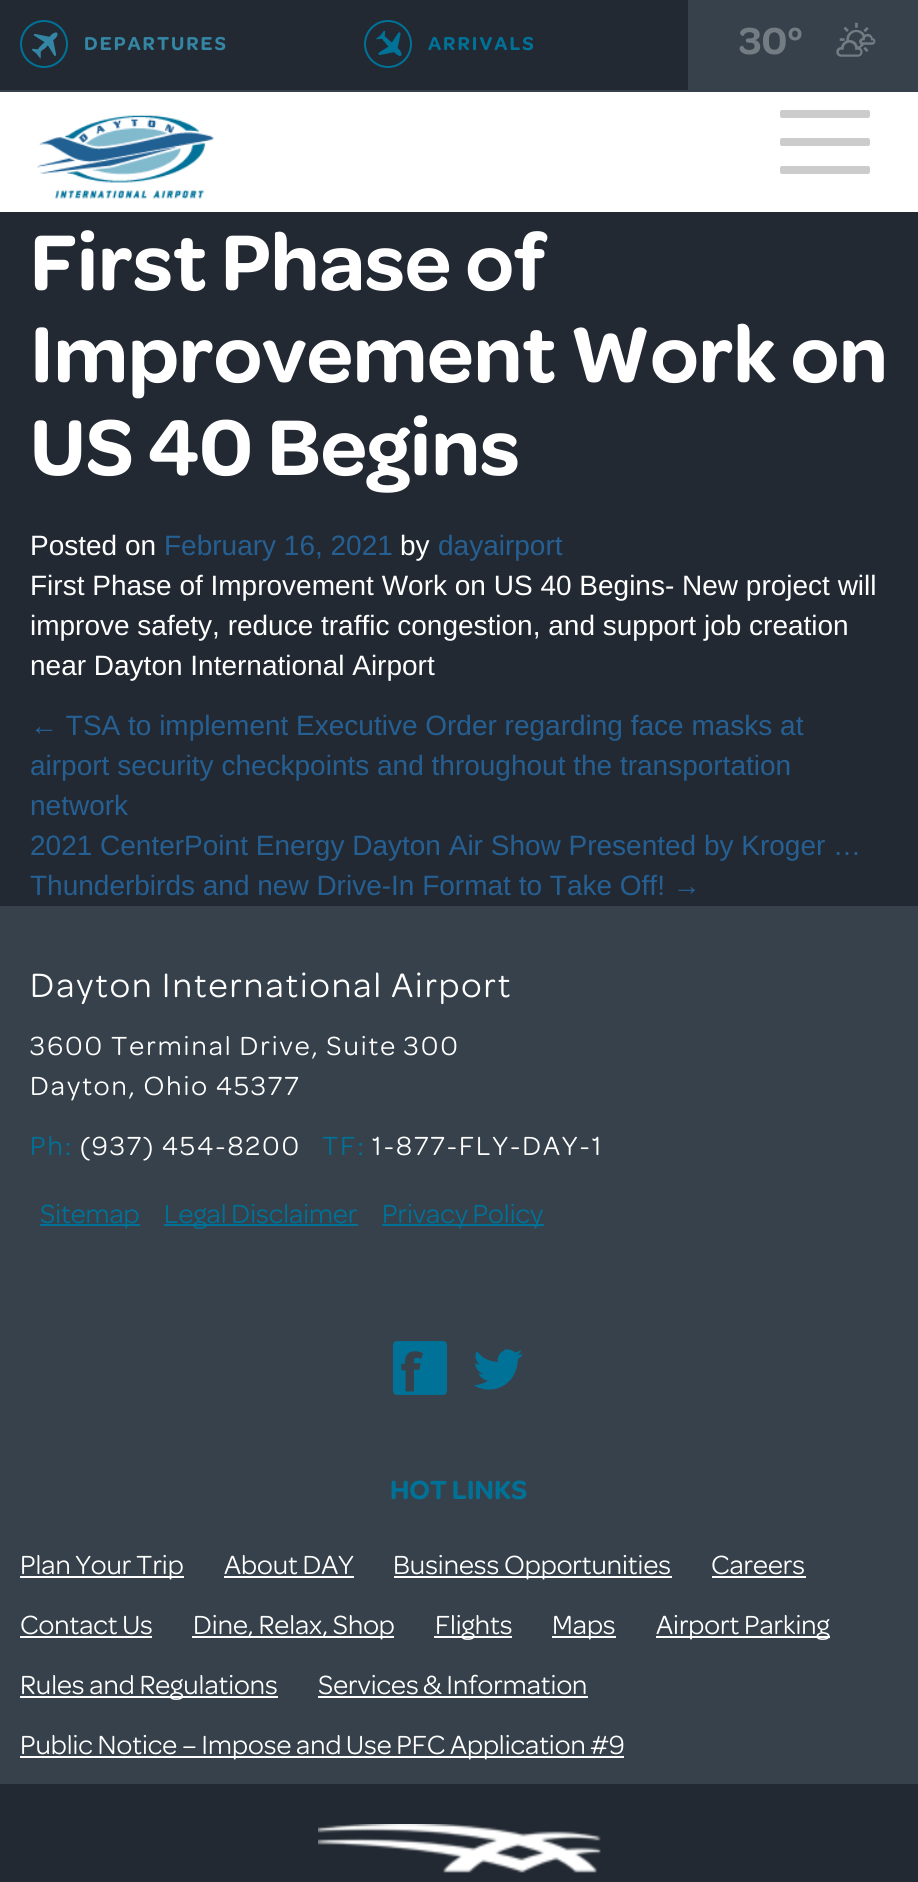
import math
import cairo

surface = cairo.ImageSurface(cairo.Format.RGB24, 918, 1882)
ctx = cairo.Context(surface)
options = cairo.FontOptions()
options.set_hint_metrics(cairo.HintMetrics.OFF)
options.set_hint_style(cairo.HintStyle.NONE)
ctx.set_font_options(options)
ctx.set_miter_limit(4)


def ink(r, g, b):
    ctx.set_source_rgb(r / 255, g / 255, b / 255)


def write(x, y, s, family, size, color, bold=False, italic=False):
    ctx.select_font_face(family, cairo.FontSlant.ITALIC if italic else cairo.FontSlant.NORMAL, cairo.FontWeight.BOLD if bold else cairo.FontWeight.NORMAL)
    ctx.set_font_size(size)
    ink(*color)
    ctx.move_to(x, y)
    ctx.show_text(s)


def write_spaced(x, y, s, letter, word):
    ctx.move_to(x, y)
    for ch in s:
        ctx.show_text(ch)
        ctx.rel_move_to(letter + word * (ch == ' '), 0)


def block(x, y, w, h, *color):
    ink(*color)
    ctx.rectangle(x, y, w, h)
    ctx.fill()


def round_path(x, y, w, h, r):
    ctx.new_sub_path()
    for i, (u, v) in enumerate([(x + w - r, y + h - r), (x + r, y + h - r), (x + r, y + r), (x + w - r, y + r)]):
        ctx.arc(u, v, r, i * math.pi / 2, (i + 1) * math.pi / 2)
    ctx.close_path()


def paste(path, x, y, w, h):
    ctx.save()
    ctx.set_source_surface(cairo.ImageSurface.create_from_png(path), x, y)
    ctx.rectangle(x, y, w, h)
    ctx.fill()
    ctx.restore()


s1 = dict(family="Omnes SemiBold", size=40, color=(115, 124, 130))
s2 = dict(family="Omnes SemiBold", size=84, color=(255, 255, 255))
s3 = dict(family="Liberation Sans", size=28, color=(255, 255, 255))
s4 = dict(family="Liberation Sans", size=28, color=(38, 95, 146))
s5 = dict(family="Omnes", size=28, color=(0, 114, 152))
s6 = dict(family="Omnes SemiBold", size=28, color=(0, 114, 152))
s7 = dict(family="Omnes", size=28, color=(255, 255, 255))

ink(34, 41, 50)
ctx.paint()
block(0, 0, 918, 92, 54, 65, 75)
block(0, 0, 688, 90, 34, 41, 50)
ctx.arc(44, 44, 23, 0, 2 * math.pi)
ink(0, 114, 152)
ctx.stroke()
paste("pic1.png", 32, 32, 26, 27)
ctx.select_font_face("Omnes SemiBold")
ctx.set_font_size(20)
ink(52, 134, 164)
write_spaced(84, 50, "DEPARTURES", 2, 0)
ctx.new_path()
ctx.arc(388, 44, 23, 0, 2 * math.pi)
ink(0, 114, 152)
ctx.stroke()
paste("pic2.png", 376, 30, 26, 26)
write_spaced(428, 50, "ARRIVALS", 2, 0)
write(739, 54, "30°", **s1)
paste("pic3.png", 836, 22, 40, 35)
block(0, 92, 918, 120, 255, 255, 255)
paste("pic4.png", 37, 114, 177, 85)
ink(204, 204, 204)
round_path(780, 110, 90, 8, 2)
ctx.fill()
round_path(780, 138, 90, 8, 2)
ctx.fill()
round_path(780, 166, 90, 8, 2)
ctx.fill()
write(30, 290, "First Phase of", **s2)
write(30, 382, "Improvement Work on", **s2)
write(30, 475, "US 40 Begins", **s2)
write(30, 555, "Posted on", **s3)
write(164, 555, "February 16, 2021", **s4)
write(400, 555, "by", **s3)
write(438, 555, "dayairport", **s4)
write(30, 595, "First Phase of Improvement Work on US 40 Begins- New project will", **s3)
write(30, 635, "improve safety, reduce traffic congestion, and support job creation", **s3)
write(30, 675, "near Dayton International Airport", **s3)
write(30, 735, "← TSA to implement Executive Order regarding face masks at", **s4)
write(30, 775, "airport security checkpoints and throughout the transportation", **s4)
write(30, 815, "network", **s4)
write(30, 855, "2021 CenterPoint Energy Dayton Air Show Presented by Kroger …", **s4)
write(30, 895, "Thunderbirds and new Drive-In Format to Take Off! →", **s4)
block(0, 906, 918, 878, 54, 65, 75)
ctx.select_font_face("Omnes")
ctx.set_font_size(36)
ink(255, 255, 255)
write_spaced(30, 997, "Dayton International Airport", 2, 0)
ctx.set_font_size(28)
write_spaced(30, 1055, "3600 Terminal Drive, Suite 300", 2, 0)
write_spaced(30, 1095, "Dayton, Ohio 45377", 2, 0)
ink(0, 114, 152)
write_spaced(30, 1155, "Ph:", 2, 0)
ink(255, 255, 255)
write_spaced(80, 1155, "(937) 454-8200", 2, 0)
ink(0, 114, 152)
write_spaced(322, 1155, "TF:", 2, 0)
ink(255, 255, 255)
write_spaced(372, 1155, "1-877-FLY-DAY-1", 2, 0)
block(40, 1224, 100, 2, 0, 114, 152)
write(40, 1223, "Sitemap", **s5)
block(164, 1224, 194, 2, 0, 114, 152)
write(164, 1223, "Legal Disclaimer", **s5)
block(382, 1224, 162, 2, 0, 114, 152)
write(382, 1223, "Privacy Policy", **s5)
paste("pic5.png", 393, 1341, 54, 54)
paste("pic6.png", 474, 1349, 49, 41)
write(390, 1499, "HOT LINKS", **s6)
block(20, 1576, 164, 2, 255, 255, 255)
write(20, 1574, "Plan Your Trip", **s7)
write(224, 1574, "About DAY", **s7)
block(224, 1576, 130, 2, 255, 255, 255)
block(394, 1576, 278, 2, 255, 255, 255)
write(393, 1574, "Business Opportunities", **s7)
write(711, 1574, "Careers", **s7)
block(712, 1576, 94, 2, 255, 255, 255)
write(20, 1634, "Contact Us", **s7)
block(20, 1636, 132, 2, 255, 255, 255)
block(192, 1636, 202, 2, 255, 255, 255)
write(193, 1634, "Dine, Relax, Shop", **s7)
block(434, 1636, 78, 2, 255, 255, 255)
write(435, 1634, "Flights", **s7)
block(552, 1636, 64, 2, 255, 255, 255)
write(552, 1634, "Maps", **s7)
block(656, 1636, 174, 2, 255, 255, 255)
write(656, 1634, "Airport Parking", **s7)
block(20, 1696, 258, 2, 255, 255, 255)
write(20, 1694, "Rules and Regulations", **s7)
write(318, 1694, "Services & Information", **s7)
block(318, 1696, 270, 2, 255, 255, 255)
block(20, 1756, 604, 2, 255, 255, 255)
write(20, 1754, "Public Notice – Impose and Use PFC Application #9", **s7)
paste("pic7.png", 318, 1824, 283, 49)
surface.write_to_png("screenshot.png")
